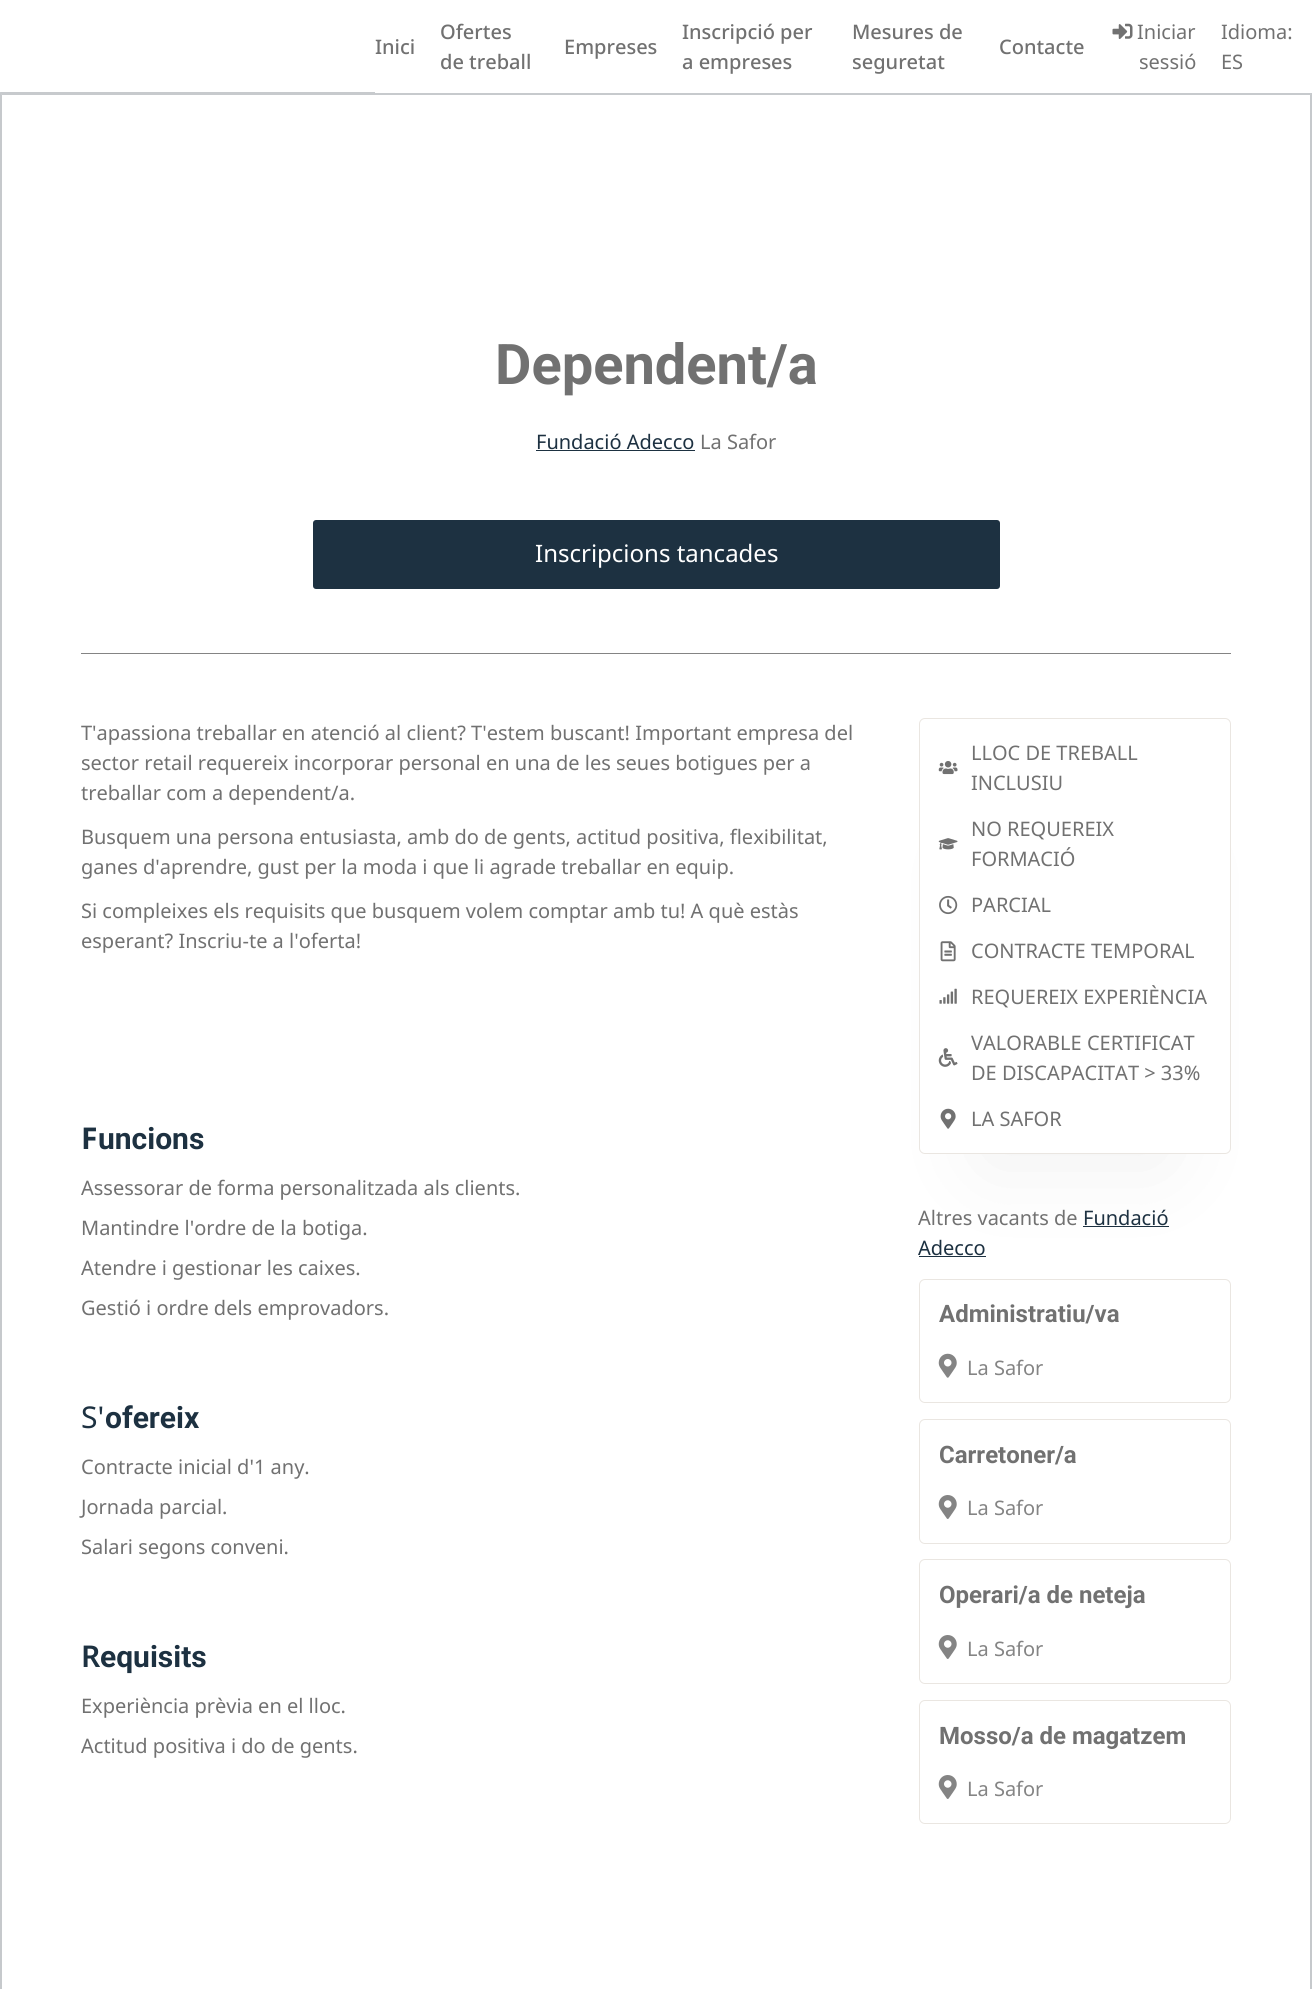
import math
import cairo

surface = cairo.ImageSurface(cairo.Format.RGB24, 1312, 1989)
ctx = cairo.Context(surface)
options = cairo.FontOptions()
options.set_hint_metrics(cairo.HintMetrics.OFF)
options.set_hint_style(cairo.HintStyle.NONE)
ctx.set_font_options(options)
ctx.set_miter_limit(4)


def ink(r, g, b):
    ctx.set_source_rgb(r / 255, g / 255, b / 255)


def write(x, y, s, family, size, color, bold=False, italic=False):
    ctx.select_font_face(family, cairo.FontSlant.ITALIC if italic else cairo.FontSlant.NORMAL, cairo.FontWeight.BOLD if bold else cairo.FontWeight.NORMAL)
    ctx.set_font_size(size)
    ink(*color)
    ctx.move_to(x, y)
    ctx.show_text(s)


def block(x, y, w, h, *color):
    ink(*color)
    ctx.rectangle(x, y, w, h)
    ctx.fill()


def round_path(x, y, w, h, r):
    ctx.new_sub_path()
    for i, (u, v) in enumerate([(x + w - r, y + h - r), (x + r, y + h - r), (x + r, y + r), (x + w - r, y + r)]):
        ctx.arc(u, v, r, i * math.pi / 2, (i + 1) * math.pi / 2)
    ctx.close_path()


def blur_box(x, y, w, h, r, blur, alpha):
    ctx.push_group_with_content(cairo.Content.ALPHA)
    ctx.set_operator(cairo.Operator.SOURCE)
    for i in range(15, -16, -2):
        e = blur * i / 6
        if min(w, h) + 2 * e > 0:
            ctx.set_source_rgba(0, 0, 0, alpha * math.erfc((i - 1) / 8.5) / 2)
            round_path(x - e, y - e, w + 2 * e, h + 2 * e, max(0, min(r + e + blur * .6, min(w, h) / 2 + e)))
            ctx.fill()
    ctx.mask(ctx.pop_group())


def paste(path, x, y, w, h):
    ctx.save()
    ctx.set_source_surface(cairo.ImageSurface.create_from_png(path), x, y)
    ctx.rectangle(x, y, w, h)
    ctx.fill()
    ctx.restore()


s1 = dict(family="Noto Sans Medium", size=20, color=(113, 113, 113))
s2 = dict(family="Noto Sans", size=20, color=(113, 113, 113))
s3 = dict(family="Roboto", size=56, color=(113, 113, 113), bold=True)
s4 = dict(family="Noto Sans", size=20, color=(29, 49, 65))
s5 = dict(family="Noto Sans", size=24, color=(255, 255, 255))
s6 = dict(family="Noto Sans", size=30, color=(29, 49, 65), bold=True)
s7 = dict(family="Roboto", size=30, color=(29, 49, 65), bold=True)
s8 = dict(family="Noto Sans", size=30, color=(29, 49, 65))
s9 = dict(family="Noto Sans SemiBold", size=30, color=(29, 49, 65))
s10 = dict(family="Roboto", size=24, color=(113, 113, 113), bold=True)
s11 = dict(family="Noto Sans", size=20, color=(132, 132, 132))

ink(255, 255, 255)
ctx.paint()
ink(199, 202, 205)
ctx.new_path()
ctx.move_to(0, 92)
ctx.line_to(1312, 92)
ctx.line_to(1310, 95)
ctx.line_to(2, 95)
ctx.close_path()
ctx.fill()
ctx.set_source_rgba(0.122, 0.161, 0.216, 0.25)
ctx.new_path()
ctx.move_to(1312, 92)
ctx.line_to(1312, 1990)
ctx.line_to(1310, 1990)
ctx.line_to(1310, 95)
ctx.close_path()
ctx.fill()
block(375, 92, 937, 1, 255, 255, 255)
write(375, 54, "Inici", **s1)
write(440, 39, "Ofertes", **s1)
write(440, 69, "de treball", **s1)
write(564, 54, "Empreses", **s1)
write(682, 39, "Inscripció per", **s1)
write(682, 69, "a empreses", **s1)
write(852, 39, "Mesures de", **s1)
write(852, 69, "seguretat", **s1)
write(999, 54, "Contacte", **s1)
paste("pic1.png", 1112, 23, 21, 16)
write(1137, 39, "Iniciar", **s2)
write(1139, 69, "sessió", **s2)
write(1221, 39, "Idioma:", **s2)
write(1221, 69, "ES", **s2)
ctx.set_source_rgba(0.122, 0.161, 0.216, 0.25)
ctx.new_path()
ctx.move_to(0, 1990)
ctx.line_to(0, 92)
ctx.line_to(2, 95)
ctx.line_to(2, 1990)
ctx.close_path()
ctx.fill()
block(81, 653, 1150, 1, 132, 132, 132)
write(495, 384, "Dependent/a", **s3)
write(536, 449, "Fundació Adecco", **s4)
block(536, 450, 159, 1, 29, 49, 65)
write(700, 449, "La Safor", **s2)
ink(29, 49, 65)
round_path(313, 520, 687, 69, 3)
ctx.fill()
write(535, 562, "Inscripcions tancades", **s5)
write(81, 740, "T'apassiona treballar en atenció al client? T'estem buscant! Important empresa del", **s2)
write(81, 770, "sector retail requereix incorporar personal en una de les seues botigues per a", **s2)
write(81, 800, "treballar com a dependent/a.", **s2)
write(81, 844, "Busquem una persona entusiasta, amb do de gents, actitud positiva, flexibilitat,", **s2)
write(81, 874, "ganes d'aprendre, gust per la moda i que li agrade treballar en equip.", **s2)
write(81, 918, "Si compleixes els requisits que busquem volem comptar amb tu! A què estàs", **s2)
write(81, 948, "esperant? Inscriu-te a l'oferta!", **s2)
write(81, 1149, "F", **s6)
write(98, 1149, "uncions", **s7)
write(81, 1195, "Assessorar de forma personalitzada als clients.", **s2)
write(81, 1235, "Mantindre l'ordre de la botiga.", **s2)
write(81, 1275, "Atendre i gestionar les caixes.", **s2)
write(81, 1315, "Gestió i ordre dels emprovadors.", **s2)
write(81, 1428, "S'", **s8)
write(105, 1428, "ofereix", **s7)
write(81, 1474, "Contracte inicial d'1 any.", **s2)
write(81, 1514, "Jornada parcial.", **s2)
write(81, 1554, "Salari segons conveni.", **s2)
write(81, 1667, "R", **s9)
write(100, 1667, "equisits", **s7)
write(81, 1713, "Experiència prèvia en el lloc.", **s2)
write(81, 1753, "Actitud positiva i do de gents.", **s2)
ink(0, 0, 0)
blur_box(984, 858, 182, 306, 0, 49, 0.06)
ink(255, 255, 255)
round_path(919.5, 718.5, 311, 435, 5.5)
ctx.fill_preserve()
ink(234, 230, 225)
ctx.set_line_width(1)
ctx.stroke()
paste("pic2.png", 938, 761, 20, 14)
write(971, 760, "LLOC DE TREBALL", **s2)
write(971, 790, "INCLUSIU", **s2)
paste("pic3.png", 938, 838, 20, 12)
write(971, 836, "NO REQUEREIX", **s2)
write(971, 866, "FORMACIÓ", **s2)
paste("pic4.png", 939, 895, 19, 20)
write(971, 912, "PARCIAL", **s2)
paste("pic5.png", 940, 941, 16, 21)
write(971, 958, "CONTRACTE TEMPORAL", **s2)
paste("pic6.png", 939, 988, 18, 16)
write(971, 1004, "REQUEREIX EXPERIÈNCIA", **s2)
paste("pic7.png", 938, 1048, 20, 19)
write(971, 1050, "VALORABLE CERTIFICAT", **s2)
write(971, 1080, "DE DISCAPACITAT > 33%", **s2)
paste("pic8.png", 940, 1108, 16, 21)
write(971, 1126, "LA SAFOR", **s2)
write(918, 1225, "Altres vacants de", **s2)
write(1083, 1225, "Fundació", **s4)
block(1083, 1226, 86, 1, 29, 49, 65)
write(918, 1255, "Adecco", **s4)
block(919, 1256, 67, 1, 29, 49, 65)
round_path(919.5, 1279.5, 311, 123, 5.5)
ink(234, 230, 225)
ctx.stroke()
write(939, 1322, "Administratiu/va", **s10)
paste("pic9.png", 938, 1353, 19, 25)
write(967, 1375, "La Safor", **s11)
round_path(919.5, 1419.5, 311, 124, 5.5)
ink(234, 230, 225)
ctx.stroke()
write(939, 1463, "Carretoner/a", **s10)
paste("pic10.png", 938, 1495, 19, 24)
write(967, 1515, "La Safor", **s11)
round_path(919.5, 1559.5, 311, 124, 5.5)
ink(234, 230, 225)
ctx.stroke()
write(939, 1603, "Operari/a de neteja", **s10)
paste("pic10.png", 938, 1635, 19, 24)
write(967, 1656, "La Safor", **s11)
round_path(919.5, 1700.5, 311, 123, 5.5)
ink(234, 230, 225)
ctx.stroke()
write(939, 1744, "Mosso/a de magatzem", **s10)
paste("pic10.png", 938, 1775, 19, 24)
write(967, 1796, "La Safor", **s11)
surface.write_to_png("screenshot.png")
